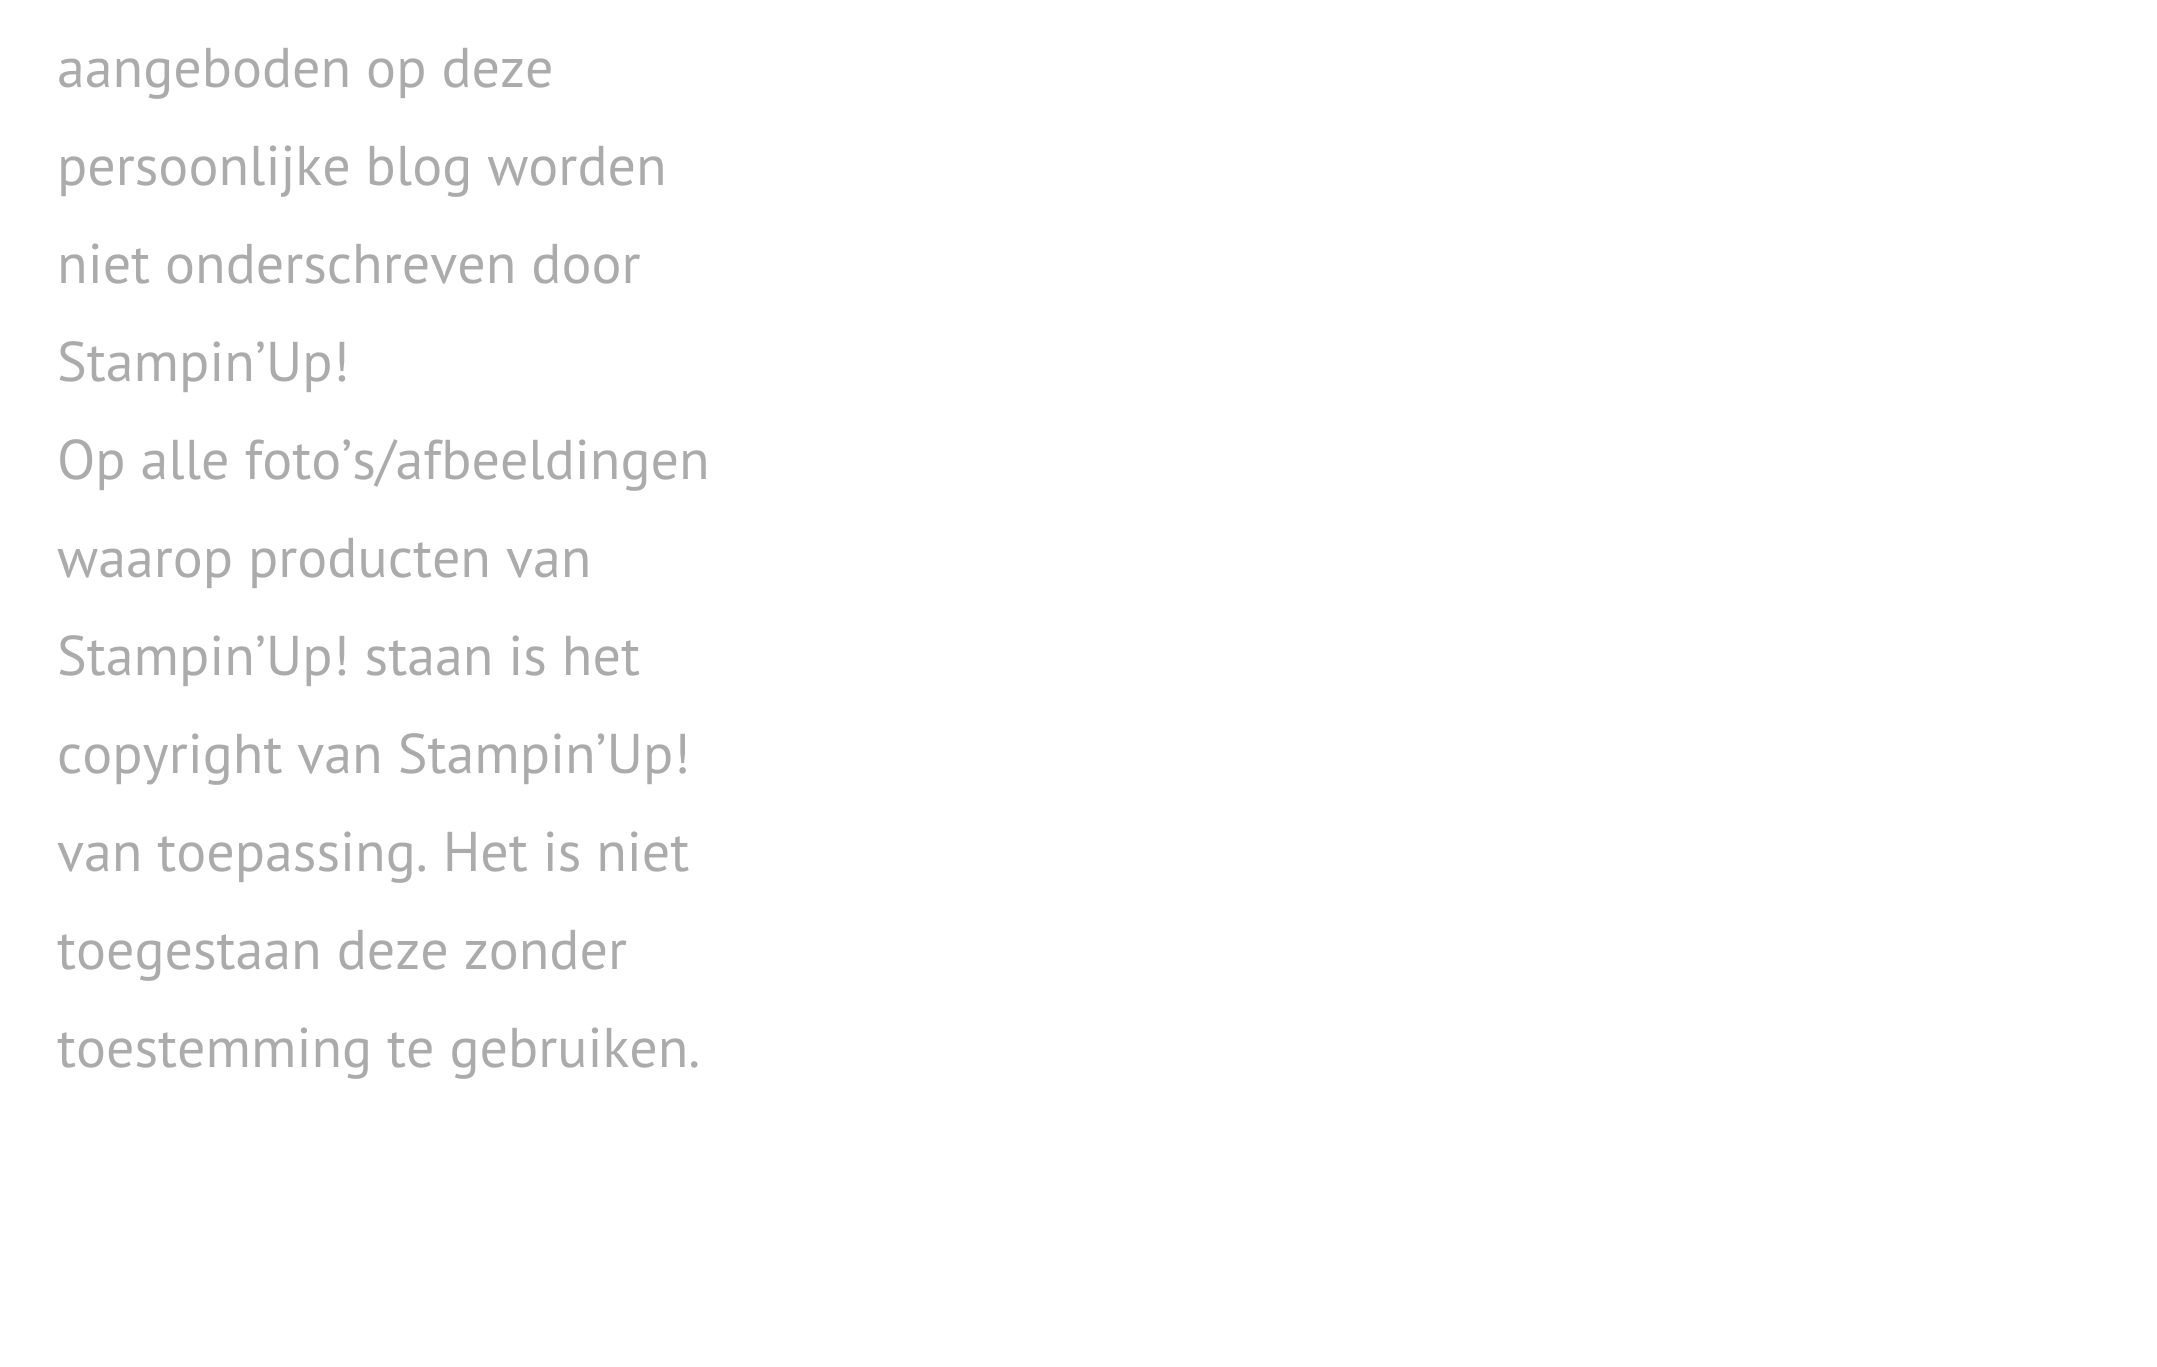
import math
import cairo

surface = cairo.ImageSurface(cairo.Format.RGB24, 2157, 1367)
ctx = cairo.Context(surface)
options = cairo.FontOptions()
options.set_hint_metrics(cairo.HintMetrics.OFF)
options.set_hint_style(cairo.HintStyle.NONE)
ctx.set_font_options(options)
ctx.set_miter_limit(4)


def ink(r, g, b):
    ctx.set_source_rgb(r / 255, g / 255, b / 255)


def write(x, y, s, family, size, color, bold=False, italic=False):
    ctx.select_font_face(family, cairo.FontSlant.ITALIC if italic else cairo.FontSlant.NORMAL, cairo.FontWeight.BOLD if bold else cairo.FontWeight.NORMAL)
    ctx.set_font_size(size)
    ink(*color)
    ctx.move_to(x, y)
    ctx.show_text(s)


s1 = dict(family="PT Sans", size=56, color=(171, 171, 171))

ink(255, 255, 255)
ctx.paint()
write(57, 87, "aangeboden op deze", **s1)
write(57, 185, "persoonlijke blog worden", **s1)
write(57, 283, "niet onderschreven door", **s1)
write(57, 381, "Stampin’Up!", **s1)
write(57, 479, "Op alle foto’s/afbeeldingen", **s1)
write(57, 577, "waarop producten van", **s1)
write(57, 675, "Stampin’Up! staan is het", **s1)
write(57, 773, "copyright van Stampin’Up!", **s1)
write(57, 871, "van toepassing. Het is niet", **s1)
write(57, 969, "toegestaan deze zonder", **s1)
write(57, 1067, "toestemming te gebruiken.", **s1)
surface.write_to_png("screenshot.png")
